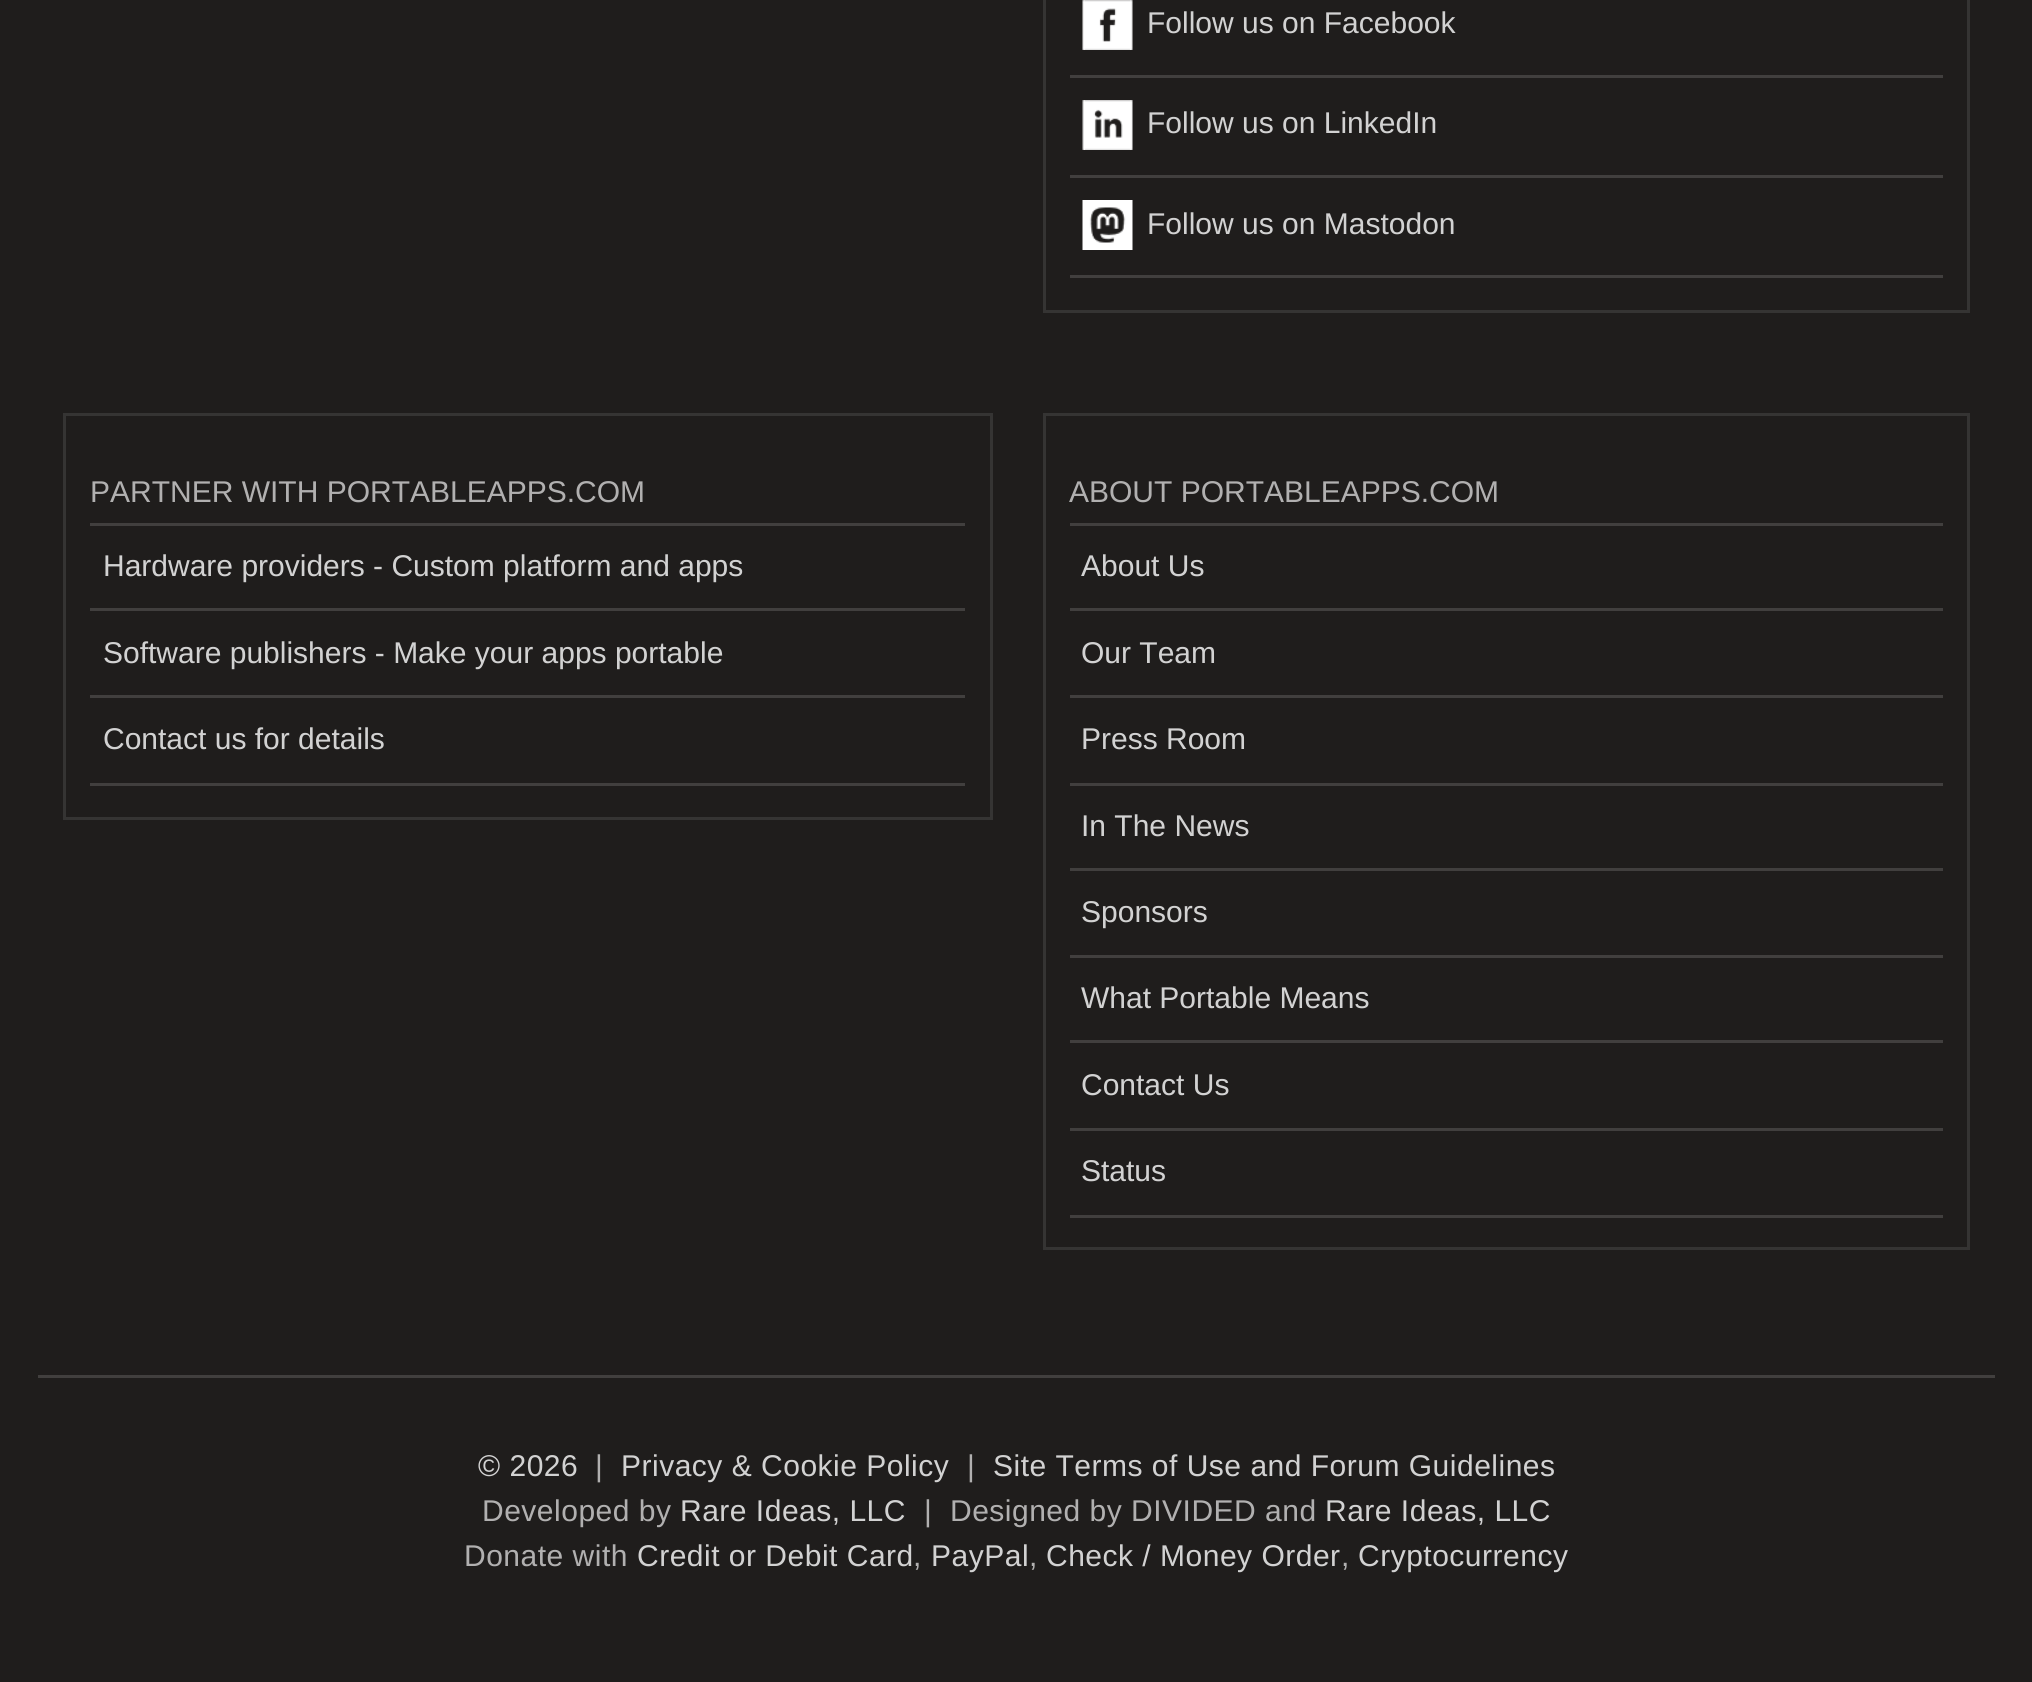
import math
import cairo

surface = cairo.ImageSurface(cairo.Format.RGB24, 2032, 1682)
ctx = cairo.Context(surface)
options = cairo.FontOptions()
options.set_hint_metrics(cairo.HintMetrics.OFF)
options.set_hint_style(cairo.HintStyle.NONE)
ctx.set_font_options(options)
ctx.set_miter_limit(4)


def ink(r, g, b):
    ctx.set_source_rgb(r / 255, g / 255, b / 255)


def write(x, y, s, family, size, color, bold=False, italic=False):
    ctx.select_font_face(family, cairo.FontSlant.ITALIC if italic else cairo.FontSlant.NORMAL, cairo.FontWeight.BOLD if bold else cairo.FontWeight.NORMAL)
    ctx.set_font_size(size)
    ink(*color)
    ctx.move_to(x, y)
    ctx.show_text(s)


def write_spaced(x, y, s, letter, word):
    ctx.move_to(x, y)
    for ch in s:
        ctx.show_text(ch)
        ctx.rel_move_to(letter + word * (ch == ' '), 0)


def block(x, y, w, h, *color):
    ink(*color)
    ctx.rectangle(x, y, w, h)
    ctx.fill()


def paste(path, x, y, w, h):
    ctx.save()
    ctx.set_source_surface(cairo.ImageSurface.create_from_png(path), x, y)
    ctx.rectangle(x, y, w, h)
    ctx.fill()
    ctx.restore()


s1 = dict(family="Arimo", size=30, color=(210, 210, 210))
s2 = dict(family="Arimo", size=30, color=(177, 176, 176))

ink(31, 29, 28)
ctx.paint()
ctx.rectangle(1044.5, -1.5, 924, 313)
ink(53, 52, 51)
ctx.set_line_width(3)
ctx.stroke()
block(1070, 75, 873, 3, 65, 63, 62)
paste("pic1.png", 1082, 0, 51, 50)
write(1147, 33, "Follow us on Facebook", **s1)
block(1070, 175, 873, 3, 65, 63, 62)
paste("pic2.png", 1082, 100, 51, 50)
write(1147, 133, "Follow us on LinkedIn", **s1)
block(1070, 275, 873, 3, 65, 63, 62)
paste("pic3.png", 1082, 200, 51, 50)
write(1147, 234, "Follow us on Mastodon", **s1)
ctx.rectangle(64.5, 414.5, 927, 404)
ink(53, 52, 51)
ctx.stroke()
block(90, 523, 875, 3, 65, 63, 62)
write(90, 502, "PARTNER WITH PORTABLEAPPS.COM", **s2)
block(90, 608, 875, 3, 65, 63, 62)
write(103, 576, "Hardware providers - Custom platform and apps", **s1)
block(90, 695, 875, 3, 65, 63, 62)
write(103, 663, "Software publishers - Make your apps portable", **s1)
block(90, 783, 875, 3, 65, 63, 62)
write(103, 749, "Contact us for details", **s1)
ctx.rectangle(1044.5, 414.5, 924, 834)
ink(53, 52, 51)
ctx.stroke()
block(1070, 523, 873, 3, 65, 63, 62)
write(1069, 502, "ABOUT PORTABLEAPPS.COM", **s2)
block(1070, 608, 873, 3, 65, 63, 62)
write(1081, 576, "About Us", **s1)
block(1070, 695, 873, 3, 65, 63, 62)
write(1081, 663, "Our Team", **s1)
block(1070, 783, 873, 3, 65, 63, 62)
write(1081, 749, "Press Room", **s1)
block(1070, 868, 873, 3, 65, 63, 62)
write(1081, 836, "In The News", **s1)
block(1070, 955, 873, 3, 65, 63, 62)
write(1081, 922, "Sponsors", **s1)
block(1070, 1040, 873, 3, 65, 63, 62)
write(1081, 1008, "What Portable Means", **s1)
block(1070, 1128, 873, 3, 65, 63, 62)
write(1081, 1095, "Contact Us", **s1)
block(1070, 1215, 873, 3, 65, 63, 62)
write(1081, 1181, "Status", **s1)
block(38, 1375, 1957, 3, 65, 63, 62)
ink(210, 210, 210)
write_spaced(478, 1476, "© 2026", 0.5, 0)
ink(177, 176, 176)
write_spaced(595, 1476, "|", 0.5, 0)
ink(210, 210, 210)
write_spaced(621, 1476, "Privacy & Cookie Policy", 0.5, 0)
ink(177, 176, 176)
write_spaced(967, 1476, "|", 0.5, 0)
ink(210, 210, 210)
write_spaced(993, 1476, "Site Terms of Use and Forum Guidelines", 0.5, 0)
ink(177, 176, 176)
write_spaced(482, 1521, "Developed by", 0.5, 0)
ink(210, 210, 210)
write_spaced(680, 1521, "Rare Ideas, LLC", 0.5, 0)
ink(177, 176, 176)
write_spaced(924, 1521, "|  Designed by DIVIDED and", 0.5, 0)
ink(210, 210, 210)
write_spaced(1325, 1521, "Rare Ideas, LLC", 0.5, 0)
ink(177, 176, 176)
write_spaced(464, 1566, "Donate with", 0.5, 0)
ink(210, 210, 210)
write_spaced(637, 1566, "Credit or Debit Card", 0.5, 0)
ink(177, 176, 176)
write_spaced(913, 1566, ",", 0.5, 0)
ink(210, 210, 210)
write_spaced(931, 1566, "PayPal", 0.5, 0)
ink(177, 176, 176)
write_spaced(1029, 1566, ",", 0.5, 0)
ink(210, 210, 210)
write_spaced(1046, 1566, "Check / Money Order", 0.5, 0)
ink(177, 176, 176)
write_spaced(1341, 1566, ",", 0.5, 0)
ink(210, 210, 210)
write_spaced(1358, 1566, "Cryptocurrency", 0.5, 0)
surface.write_to_png("screenshot.png")
